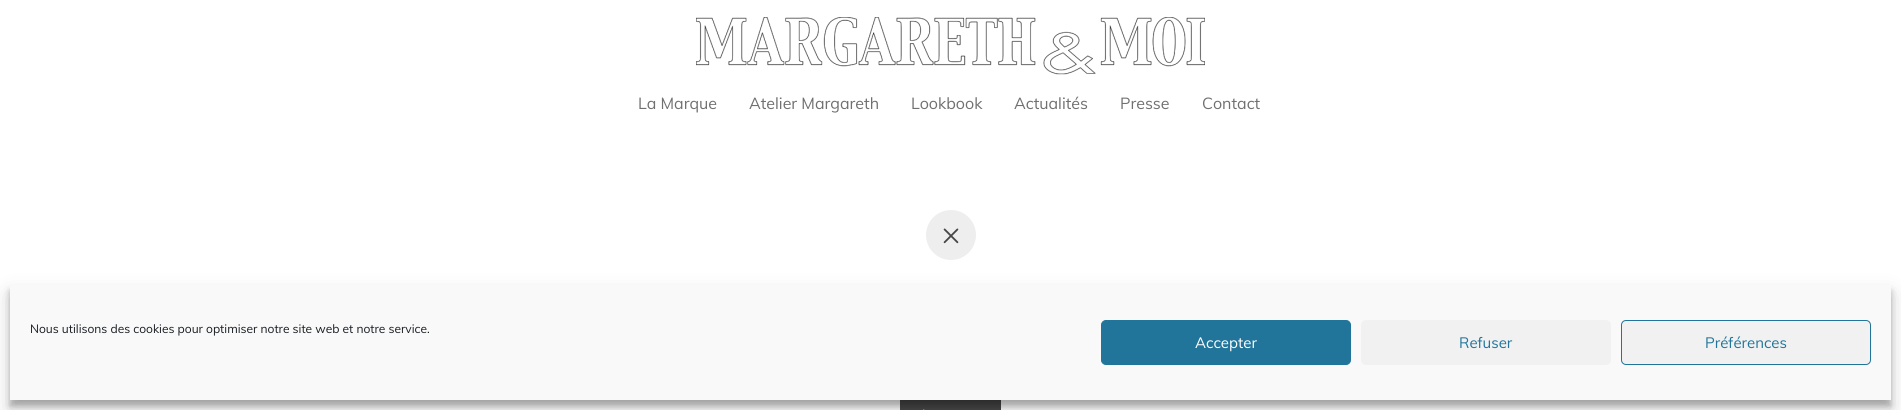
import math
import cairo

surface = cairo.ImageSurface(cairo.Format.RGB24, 1901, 410)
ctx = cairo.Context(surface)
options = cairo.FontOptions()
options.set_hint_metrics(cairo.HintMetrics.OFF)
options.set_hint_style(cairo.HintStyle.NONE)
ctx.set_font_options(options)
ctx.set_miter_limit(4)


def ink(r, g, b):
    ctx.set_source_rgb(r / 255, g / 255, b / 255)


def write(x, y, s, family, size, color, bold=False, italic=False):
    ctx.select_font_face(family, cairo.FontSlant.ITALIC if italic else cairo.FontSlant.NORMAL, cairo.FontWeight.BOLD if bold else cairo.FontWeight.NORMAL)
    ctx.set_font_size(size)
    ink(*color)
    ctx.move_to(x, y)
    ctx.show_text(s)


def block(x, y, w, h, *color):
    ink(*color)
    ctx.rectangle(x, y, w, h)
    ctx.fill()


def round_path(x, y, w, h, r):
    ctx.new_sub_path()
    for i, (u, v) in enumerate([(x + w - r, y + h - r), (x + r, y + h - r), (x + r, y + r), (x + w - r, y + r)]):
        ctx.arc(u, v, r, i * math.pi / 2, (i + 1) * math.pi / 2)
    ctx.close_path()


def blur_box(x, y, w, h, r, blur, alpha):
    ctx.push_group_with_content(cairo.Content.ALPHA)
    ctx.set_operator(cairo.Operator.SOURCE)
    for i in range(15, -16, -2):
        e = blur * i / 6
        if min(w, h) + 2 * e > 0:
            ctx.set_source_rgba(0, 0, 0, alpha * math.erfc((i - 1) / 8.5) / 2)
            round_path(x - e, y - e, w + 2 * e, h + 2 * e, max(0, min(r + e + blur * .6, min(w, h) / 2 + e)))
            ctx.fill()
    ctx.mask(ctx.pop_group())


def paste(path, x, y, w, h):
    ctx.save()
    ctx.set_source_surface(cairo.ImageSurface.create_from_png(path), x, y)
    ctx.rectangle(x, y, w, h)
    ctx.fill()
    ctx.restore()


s1 = dict(family="Muli", size=16, color=(112, 112, 112))
s2 = dict(family="Muli", size=12, color=(25, 30, 35))
s3 = dict(family="Muli", size=15, color=(255, 255, 255))
s4 = dict(family="Muli", size=15, color=(33, 117, 155))

ink(255, 255, 255)
ctx.paint()
paste("pic1.png", 696, 17, 509, 58)
write(638, 109, "La Marque", **s1)
write(749, 109, "Atelier Margareth", **s1)
write(911, 109, "Lookbook", **s1)
write(1014, 109, "Actualités", **s1)
write(1120, 109, "Presse", **s1)
write(1202, 109, "Contact", **s1)
ink(238, 238, 238)
ctx.new_path()
ctx.arc(951, 235, 25, 0, 2 * math.pi)
ctx.fill()
paste("pic2.png", 943, 228, 16, 16)
block(900, 400, 101, 10, 71, 71, 71)
paste("pic3.png", 923, 409, 2, 1)
ink(0, 0, 0)
blur_box(10, 291, 1881, 115, 0, 3, 0.23)
blur_box(10, 295, 1881, 115, 0, 10, 0.19)
block(10, 285, 1881, 115, 249, 249, 249)
write(30, 333, "Nous utilisons des cookies pour optimiser notre site web et notre service.", **s2)
ink(33, 117, 155)
round_path(1101.5, 320.5, 249, 44, 4.5)
ctx.fill_preserve()
ctx.set_line_width(1)
ctx.stroke()
write(1195, 348, "Accepter", **s3)
ink(241, 241, 241)
round_path(1361, 320, 250, 45, 5)
ctx.fill()
write(1459, 348, "Refuser", **s4)
ink(241, 241, 241)
round_path(1621.5, 320.5, 249, 44, 4.5)
ctx.fill_preserve()
ink(33, 117, 155)
ctx.stroke()
write(1705, 348, "Préférences", **s4)
surface.write_to_png("screenshot.png")
